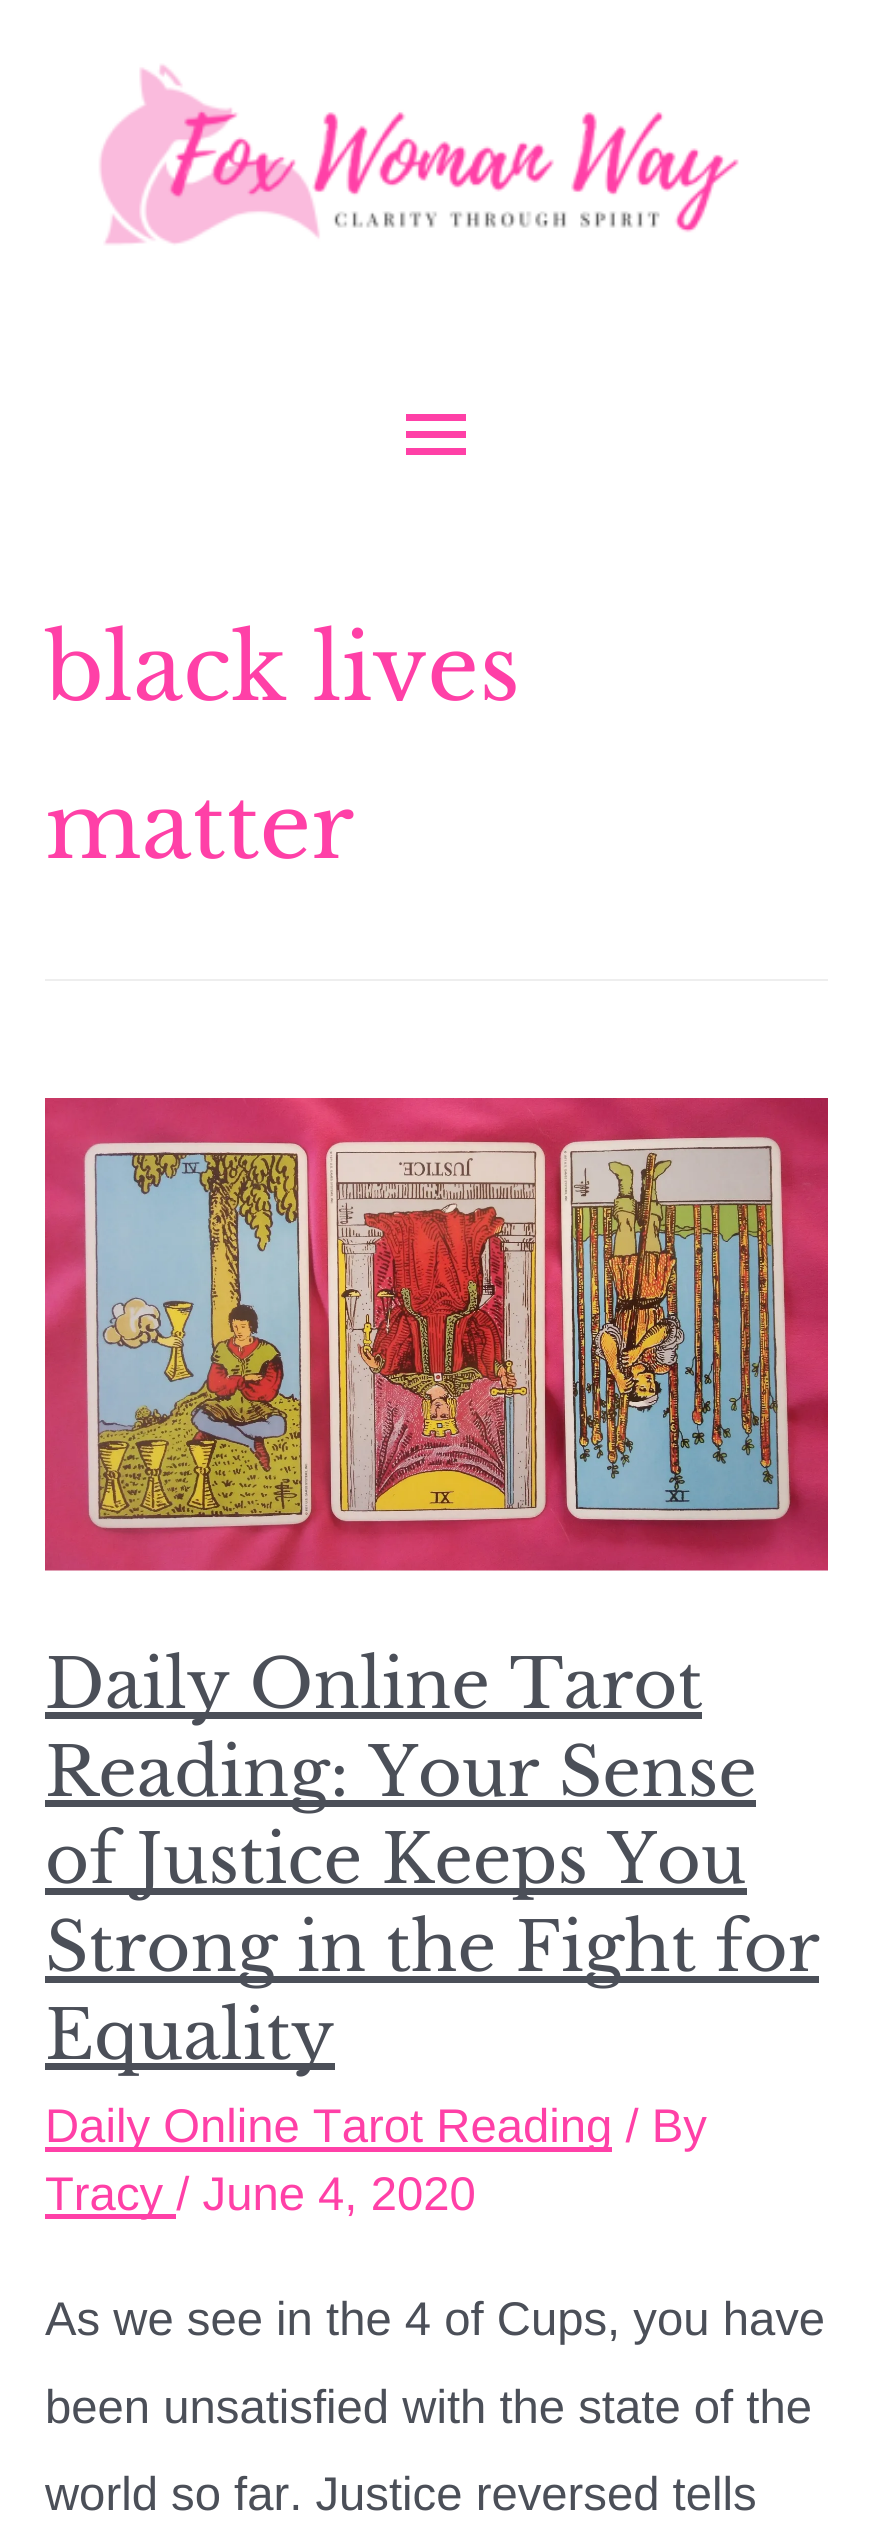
import math
import cairo

surface = cairo.ImageSurface(cairo.Format.RGB24, 873, 2548)
ctx = cairo.Context(surface)
options = cairo.FontOptions()
options.set_hint_metrics(cairo.HintMetrics.OFF)
options.set_hint_style(cairo.HintStyle.NONE)
ctx.set_font_options(options)
ctx.set_miter_limit(4)


def ink(r, g, b):
    ctx.set_source_rgb(r / 255, g / 255, b / 255)


def write(x, y, s, family, size, color, bold=False, italic=False):
    ctx.select_font_face(family, cairo.FontSlant.ITALIC if italic else cairo.FontSlant.NORMAL, cairo.FontWeight.BOLD if bold else cairo.FontWeight.NORMAL)
    ctx.set_font_size(size)
    ink(*color)
    ctx.move_to(x, y)
    ctx.show_text(s)


def block(x, y, w, h, *color):
    ink(*color)
    ctx.rectangle(x, y, w, h)
    ctx.fill()


def paste(path, x, y, w, h):
    ctx.save()
    ctx.set_source_surface(cairo.ImageSurface.create_from_png(path), x, y)
    ctx.rectangle(x, y, w, h)
    ctx.fill()
    ctx.restore()


s1 = dict(family="Libre Baskerville", size=90, color=(255, 64, 167))
s2 = dict(family="Libre Baskerville", size=67.5, color=(75, 79, 88))
s3 = dict(family="Liberation Sans", size=47.25, color=(255, 64, 167))
s4 = dict(family="Liberation Sans", size=47.25, color=(75, 79, 88))

ink(255, 255, 255)
ctx.paint()
paste("pic1.png", 98, 63, 641, 183)
ink(255, 64, 167)
ctx.new_path()
ctx.move_to(406, 414)
ctx.line_to(466, 414)
ctx.line_to(466, 421)
ctx.line_to(406, 421)
ctx.close_path()
ctx.move_to(406, 438)
ctx.line_to(406, 431)
ctx.line_to(466, 431)
ctx.line_to(466, 438)
ctx.close_path()
ctx.move_to(406, 455)
ctx.line_to(406, 448)
ctx.line_to(466, 448)
ctx.line_to(466, 455)
ctx.close_path()
ctx.fill()
block(45, 979, 783, 2, 238, 238, 238)
write(45, 700, "black lives", **s1)
write(45, 858, "matter", **s1)
paste("pic2.png", 45, 1098, 783, 473)
block(45, 1712, 657, 7, 75, 79, 88)
write(45, 1708, "Daily Online Tarot", **s2)
block(45, 1800, 711, 7, 75, 79, 88)
write(45, 1796, "Reading: Your Sense", **s2)
block(45, 1888, 702, 7, 75, 79, 88)
write(45, 1883, "of Justice Keeps You", **s2)
block(45, 1976, 774, 7, 75, 79, 88)
write(45, 1971, "Strong in the Fight for", **s2)
block(45, 2063, 290, 7, 75, 79, 88)
write(45, 2059, "Equality", **s2)
block(45, 2147, 567, 5, 255, 64, 167)
write(45, 2142, "Daily Online Tarot Reading / By", **s3)
block(45, 2214, 117, 5, 255, 64, 167)
write(45, 2210, "Tracy / June 4, 2020", **s3)
block(162, 2214, 14, 5, 255, 64, 167)
write(45, 2335, "As we see in the 4 of Cups, you have", **s4)
write(45, 2423, "been unsatisfied with the state of the", **s4)
write(45, 2510, "world so far. Justice reversed tells", **s4)
surface.write_to_png("screenshot.png")
